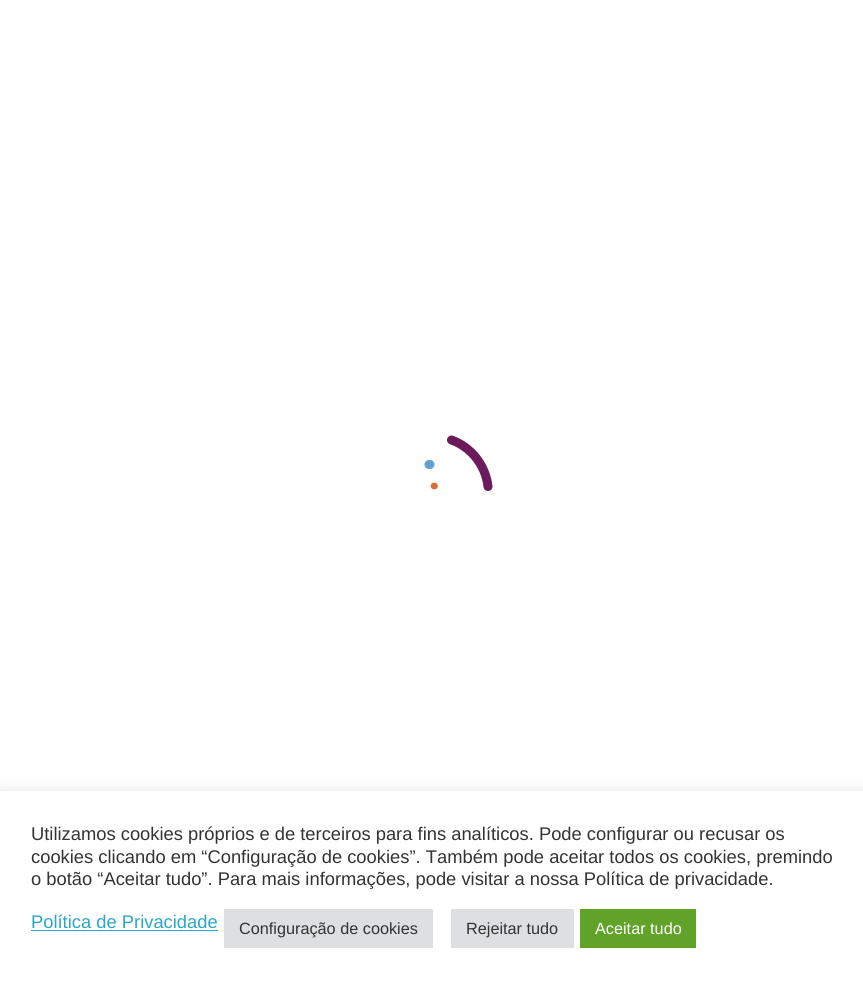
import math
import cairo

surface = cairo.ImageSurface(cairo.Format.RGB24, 863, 984)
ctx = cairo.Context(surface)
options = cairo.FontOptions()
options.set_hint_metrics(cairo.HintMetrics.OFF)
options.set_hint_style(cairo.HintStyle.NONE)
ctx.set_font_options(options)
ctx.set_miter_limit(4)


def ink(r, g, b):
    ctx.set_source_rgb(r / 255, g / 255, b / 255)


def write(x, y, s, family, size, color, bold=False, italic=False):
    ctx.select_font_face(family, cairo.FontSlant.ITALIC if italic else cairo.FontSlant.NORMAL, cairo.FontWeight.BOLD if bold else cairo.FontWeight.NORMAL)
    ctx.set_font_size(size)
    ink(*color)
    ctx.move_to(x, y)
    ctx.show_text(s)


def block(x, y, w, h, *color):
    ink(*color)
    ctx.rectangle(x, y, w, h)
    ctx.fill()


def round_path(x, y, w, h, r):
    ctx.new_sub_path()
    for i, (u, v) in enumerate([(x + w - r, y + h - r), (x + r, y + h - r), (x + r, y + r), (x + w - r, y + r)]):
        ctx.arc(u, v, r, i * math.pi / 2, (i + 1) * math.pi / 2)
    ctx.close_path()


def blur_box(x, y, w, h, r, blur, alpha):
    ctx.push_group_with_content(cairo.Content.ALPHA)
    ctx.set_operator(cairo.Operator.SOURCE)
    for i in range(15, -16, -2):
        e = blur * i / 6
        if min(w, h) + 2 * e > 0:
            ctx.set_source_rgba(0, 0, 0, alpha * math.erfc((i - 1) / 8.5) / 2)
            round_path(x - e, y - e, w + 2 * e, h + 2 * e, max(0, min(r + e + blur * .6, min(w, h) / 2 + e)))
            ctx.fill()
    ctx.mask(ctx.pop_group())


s1 = dict(family="Liberation Sans", size=18.35, color=(51, 51, 51))
s2 = dict(family="Liberation Sans", size=18.35, color=(43, 166, 203))
s3 = dict(family="Liberation Sans", size=16.25, color=(51, 51, 51))
s4 = dict(family="Liberation Sans", size=16.25, color=(255, 255, 255))

ink(255, 255, 255)
ctx.paint()
ctx.new_path()
ctx.move_to(429, 464.5)
ctx.line_to(430, 464.5)
ink(98, 160, 211)
ctx.set_line_width(9)
ctx.set_line_cap(cairo.LineCap.ROUND)
ctx.set_line_join(cairo.LineJoin.ROUND)
ctx.stroke()
ctx.new_path()
ctx.move_to(451.5, 440)
ctx.curve_to(471, 447, 485.5, 465, 488, 486.5)
ink(107, 27, 91)
ctx.stroke()
ctx.new_path()
ctx.move_to(434.5, 486)
ctx.line_to(434, 486)
ink(212, 112, 56)
ctx.set_line_width(6.7)
ctx.stroke()
ink(172, 171, 171)
blur_box(0, 790, 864, 194, 0, 6, 0.3)
block(0, 791, 863, 193, 255, 255, 255)
write(31, 840, "Utilizamos cookies próprios e de terceiros para fins analíticos. Pode configurar ou recusar os", **s1)
write(31, 863, "cookies clicando em “Configuração de cookies”. Também pode aceitar todos os cookies, premindo", **s1)
write(31, 885, "o botão “Aceitar tudo”. Para mais informações, pode visitar a nossa Política de privacidade.", **s1)
write(31, 928, "Política de Privacidade", **s2)
block(31, 930, 187, 1, 43, 166, 203)
block(224, 909, 209, 39, 222, 223, 224)
write(239, 934, "Configuração de cookies", **s3)
block(451, 909, 123, 39, 222, 223, 224)
write(466, 934, "Rejeitar tudo", **s3)
block(580, 909, 116, 39, 97, 162, 41)
write(595, 934, "Aceitar tudo", **s4)
surface.write_to_png("screenshot.png")
